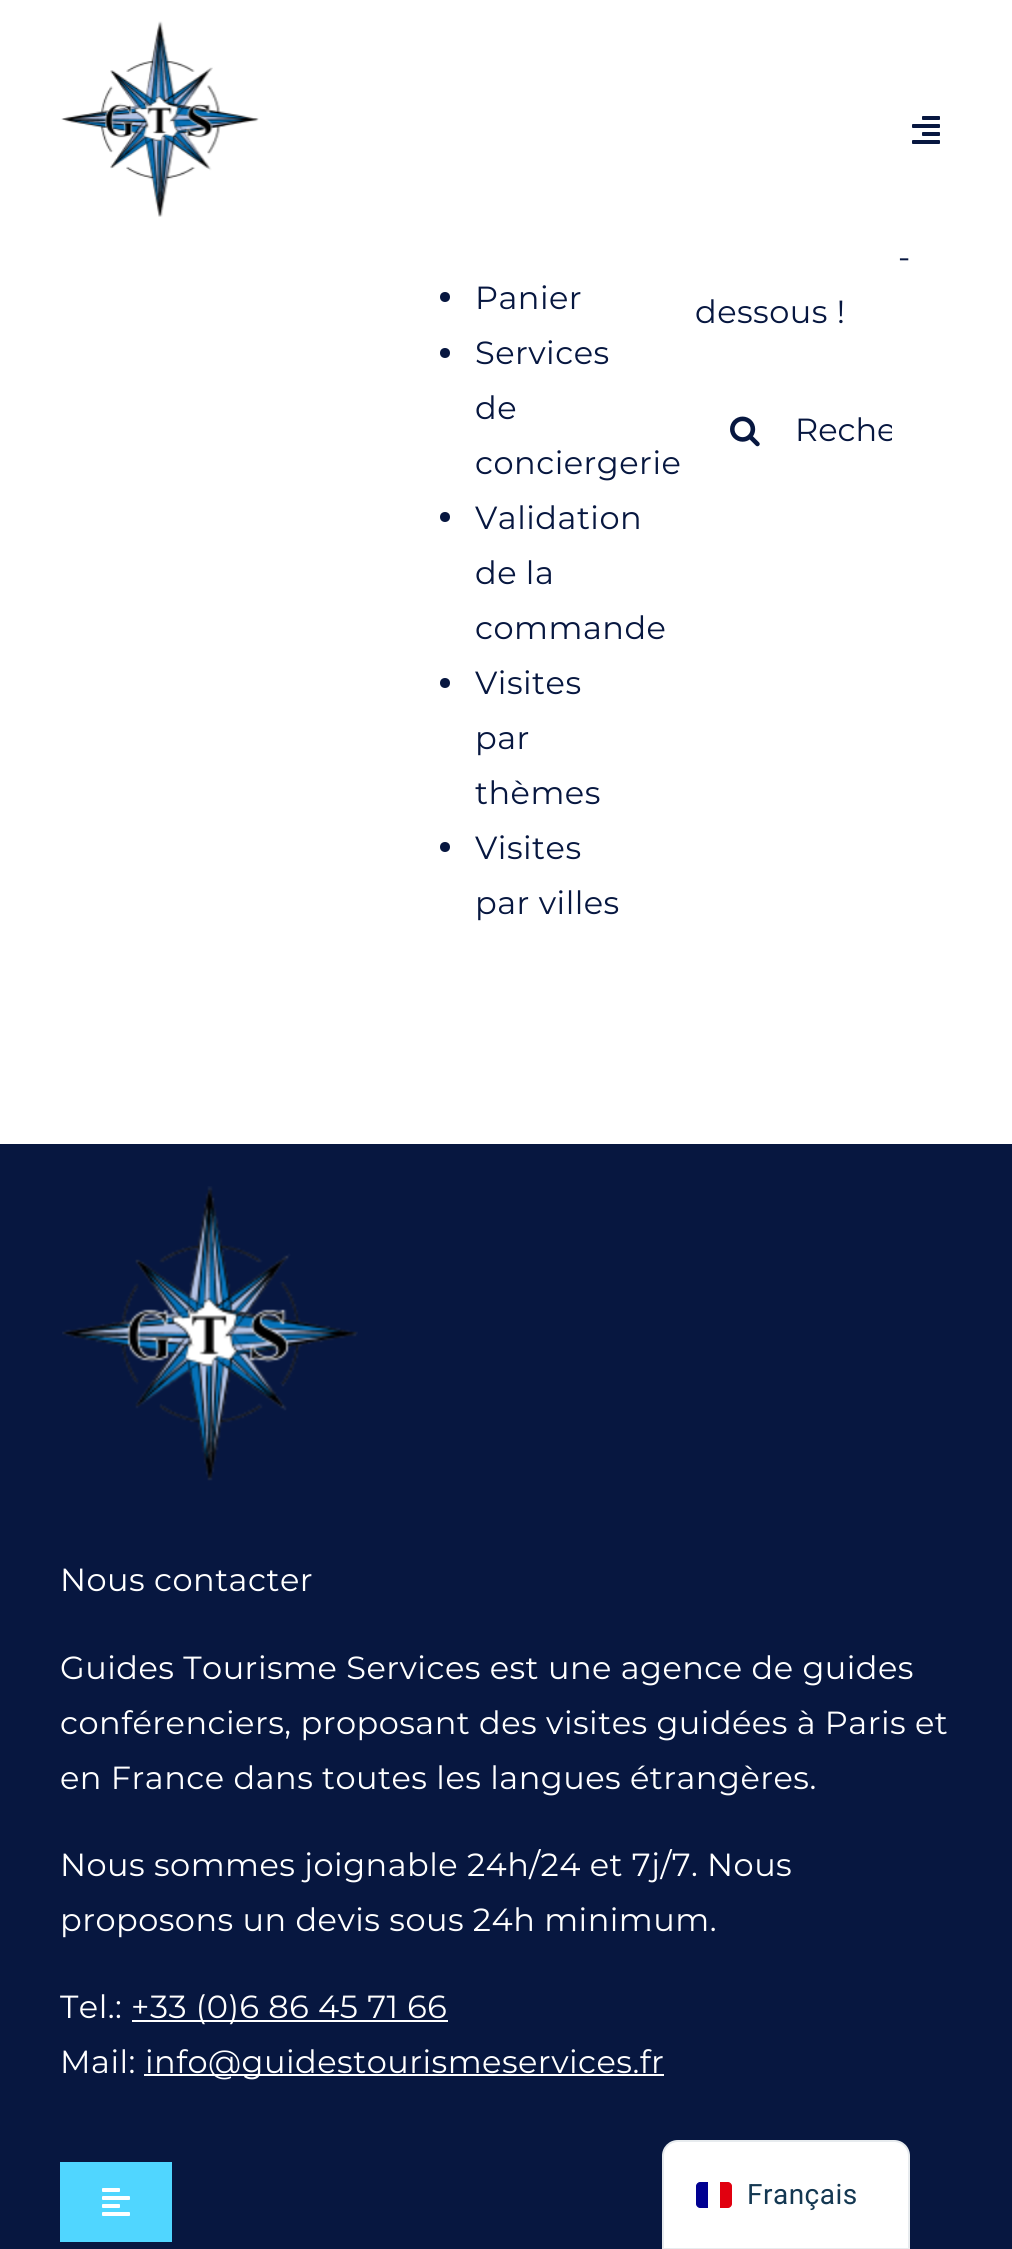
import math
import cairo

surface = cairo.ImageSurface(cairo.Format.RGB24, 1012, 2249)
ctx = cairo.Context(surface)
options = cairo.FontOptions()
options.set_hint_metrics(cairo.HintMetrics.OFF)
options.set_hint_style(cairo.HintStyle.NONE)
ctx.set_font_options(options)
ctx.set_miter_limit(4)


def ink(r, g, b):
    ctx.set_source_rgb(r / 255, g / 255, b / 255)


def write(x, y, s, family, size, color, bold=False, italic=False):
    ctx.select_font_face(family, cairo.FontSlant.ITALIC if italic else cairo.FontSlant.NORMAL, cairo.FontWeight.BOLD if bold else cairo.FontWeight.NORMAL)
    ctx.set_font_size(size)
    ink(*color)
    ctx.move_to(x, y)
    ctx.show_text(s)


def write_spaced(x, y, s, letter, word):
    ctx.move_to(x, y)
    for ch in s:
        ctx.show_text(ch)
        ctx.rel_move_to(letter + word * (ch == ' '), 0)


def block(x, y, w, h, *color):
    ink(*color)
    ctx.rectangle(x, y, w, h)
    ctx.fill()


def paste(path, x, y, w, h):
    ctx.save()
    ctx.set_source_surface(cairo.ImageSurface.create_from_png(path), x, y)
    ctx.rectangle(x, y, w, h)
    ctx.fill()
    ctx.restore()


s1 = dict(family="Montserrat", size=32, color=(7, 23, 64))

ink(255, 255, 255)
ctx.paint()
paste("pic1.png", 61, 21, 198, 196)
paste("pic2.png", 912, 116, 28, 28)
ink(7, 23, 64)
ctx.arc(445, 297, 5, 0, 2 * math.pi)
ctx.fill()
ctx.select_font_face("Montserrat")
ctx.set_font_size(32)
write_spaced(475, 309, "Panier", 0.48, 0)
ctx.new_path()
ctx.arc(445, 353, 5, 0, 2 * math.pi)
ctx.fill()
write_spaced(475, 364, "Services", 0.48, 0)
write_spaced(475, 419, "de", 0.48, 0)
write_spaced(475, 474, "conciergerie", 0.48, 0)
ctx.new_path()
ctx.arc(445, 517, 5, 0, 2 * math.pi)
ctx.fill()
write_spaced(475, 529, "Validation", 0.48, 0)
write_spaced(475, 584, "de la", 0.48, 0)
write_spaced(475, 639, "commande", 0.48, 0)
ctx.new_path()
ctx.arc(445, 683, 5, 0, 2 * math.pi)
ctx.fill()
write_spaced(475, 694, "Visites", 0.48, 0)
write_spaced(475, 749, "par", 0.48, 0)
write_spaced(475, 804, "thèmes", 0.48, 0)
ctx.new_path()
ctx.arc(445, 847, 5, 0, 2 * math.pi)
ctx.fill()
write_spaced(475, 859, "Visites", 0.48, 0)
write_spaced(475, 914, "par villes", 0.48, 0)
write_spaced(898, 268, "-", 0.48, 0)
write_spaced(695, 323, "dessous !", 0.48, 0)
paste("pic3.png", 730, 416, 30, 31)
ctx.save()
ctx.rectangle(794, 410, 98, 38)
ctx.clip()
write(795, 441, "Reche", **s1)
ctx.restore()
block(0, 1144, 1012, 1105, 7, 23, 64)
paste("pic4.png", 62, 1186, 296, 295)
ink(255, 255, 255)
write_spaced(60, 1591, "Nous contacter", 0.48, 0)
write_spaced(60, 1679, "Guides Tourisme Services est une agence de guides", 0.48, 0)
write_spaced(60, 1734, "conférenciers, proposant des visites guidées à Paris et", 0.48, 0)
write_spaced(60, 1789, "en France dans toutes les langues étrangères.", 0.48, 0)
write_spaced(60, 1876, "Nous sommes joignable 24h/24 et 7j/7. Nous", 0.48, 0)
write_spaced(60, 1931, "proposons un devis sous 24h minimum.", 0.48, 0)
write_spaced(60, 2018, "Tel.:", 0.48, 0)
block(132, 2020, 316, 2, 255, 255, 255)
write_spaced(131, 2018, "+33 (0)6 86 45 71 66", 0.48, 0)
write_spaced(60, 2073, "Mail:", 0.48, 0)
block(144, 2074, 520, 2, 255, 255, 255)
write_spaced(145, 2073, "info@guidestourismeservices.fr", 0.48, 0)
block(60, 2162, 112, 80, 80, 214, 255)
paste("pic5.png", 102, 2188, 28, 28)
ink(255, 255, 255)
ctx.new_path()
ctx.move_to(678, 2140)
ctx.line_to(894, 2140)
ctx.curve_to(903, 2140, 910, 2147, 910, 2156)
ctx.line_to(910, 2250)
ctx.line_to(662, 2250)
ctx.line_to(662, 2156)
ctx.curve_to(662, 2147, 669, 2140, 678, 2140)
ctx.close_path()
ctx.fill()
ctx.new_path()
ctx.move_to(678, 2141)
ctx.line_to(894, 2141)
ctx.curve_to(902.5, 2141, 909, 2147.5, 909, 2156)
ctx.line_to(909, 2249)
ctx.line_to(663, 2249)
ctx.line_to(663, 2156)
ctx.curve_to(663, 2147.5, 669.5, 2141, 678, 2141)
ctx.close_path()
ctx.set_source_rgba(0.078, 0.22, 0.322, 0.1)
ctx.stroke()
ink(0, 0, 145)
ctx.new_path()
ctx.move_to(700, 2182)
ctx.line_to(708, 2182)
ctx.line_to(708, 2208)
ctx.line_to(700, 2208)
ctx.curve_to(698, 2208, 696, 2206, 696, 2204)
ctx.line_to(696, 2186)
ctx.curve_to(696, 2184, 698, 2182, 700, 2182)
ctx.close_path()
ctx.fill()
ink(225, 0, 15)
ctx.new_path()
ctx.move_to(720, 2182)
ctx.line_to(728, 2182)
ctx.curve_to(730, 2182, 732, 2184, 732, 2186)
ctx.line_to(732, 2204)
ctx.curve_to(732, 2206, 730, 2208, 728, 2208)
ctx.line_to(720, 2208)
ctx.close_path()
ctx.fill()
ctx.select_font_face("Roboto")
ctx.set_font_size(28)
ink(20, 56, 82)
write_spaced(747, 2204, "Français", 0.48, 0)
surface.write_to_png("screenshot.png")
